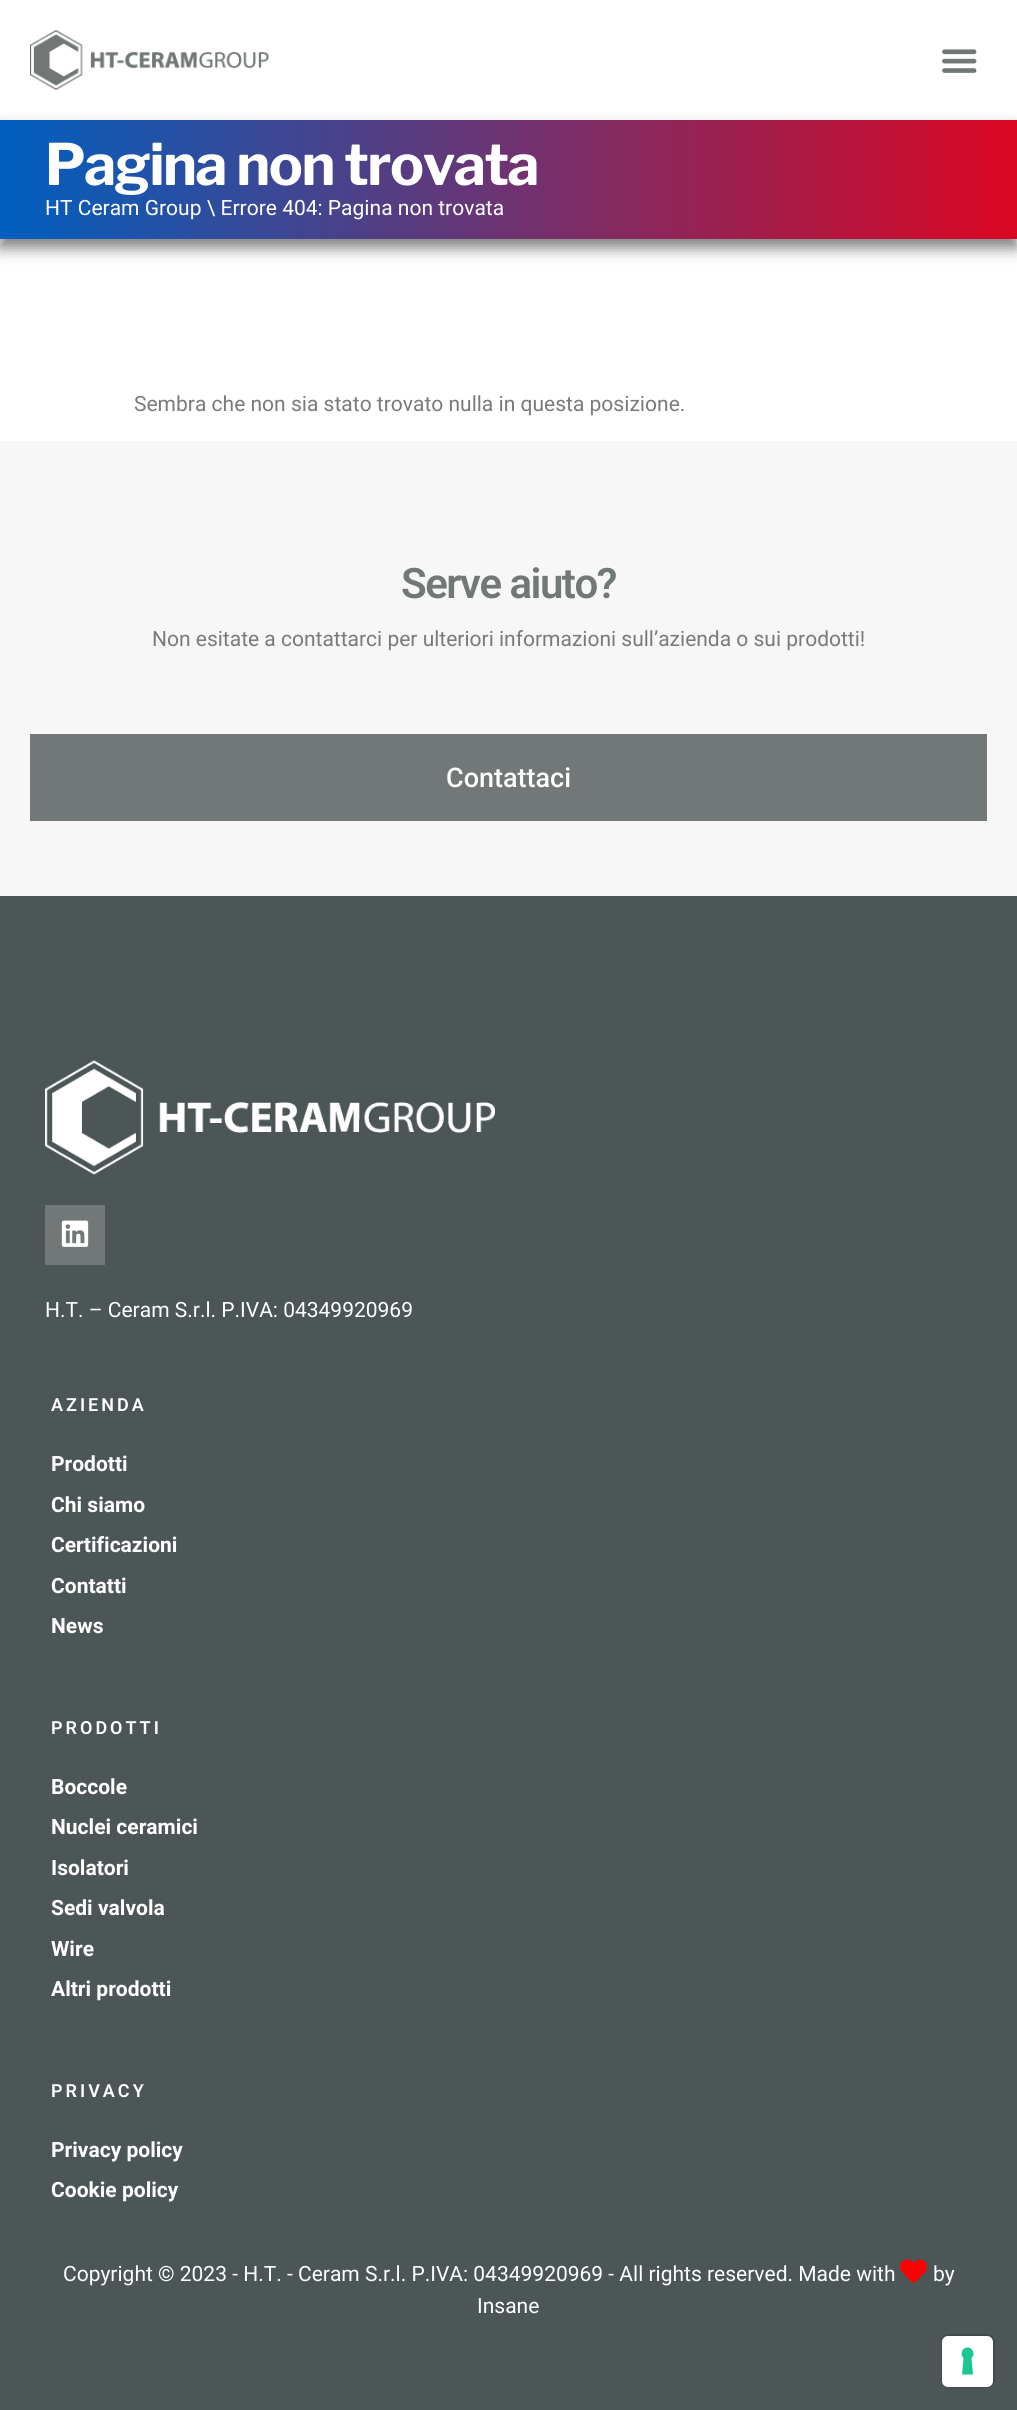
import math
import cairo

surface = cairo.ImageSurface(cairo.Format.RGB24, 1017, 2410)
ctx = cairo.Context(surface)
options = cairo.FontOptions()
options.set_hint_metrics(cairo.HintMetrics.OFF)
options.set_hint_style(cairo.HintStyle.NONE)
ctx.set_font_options(options)
ctx.set_miter_limit(4)


def ink(r, g, b):
    ctx.set_source_rgb(r / 255, g / 255, b / 255)


def write(x, y, s, family, size, color, bold=False, italic=False):
    ctx.select_font_face(family, cairo.FontSlant.ITALIC if italic else cairo.FontSlant.NORMAL, cairo.FontWeight.BOLD if bold else cairo.FontWeight.NORMAL)
    ctx.set_font_size(size)
    ink(*color)
    ctx.move_to(x, y)
    ctx.show_text(s)


def write_spaced(x, y, s, letter, word):
    ctx.move_to(x, y)
    for ch in s:
        ctx.show_text(ch)
        ctx.rel_move_to(letter + word * (ch == ' '), 0)


def block(x, y, w, h, *color):
    ink(*color)
    ctx.rectangle(x, y, w, h)
    ctx.fill()


def round_path(x, y, w, h, r):
    ctx.new_sub_path()
    for i, (u, v) in enumerate([(x + w - r, y + h - r), (x + r, y + h - r), (x + r, y + r), (x + w - r, y + r)]):
        ctx.arc(u, v, r, i * math.pi / 2, (i + 1) * math.pi / 2)
    ctx.close_path()


def blur_box(x, y, w, h, r, blur, alpha):
    ctx.push_group_with_content(cairo.Content.ALPHA)
    ctx.set_operator(cairo.Operator.SOURCE)
    for i in range(15, -16, -2):
        e = blur * i / 6
        if min(w, h) + 2 * e > 0:
            ctx.set_source_rgba(0, 0, 0, alpha * math.erfc((i - 1) / 8.5) / 2)
            round_path(x - e, y - e, w + 2 * e, h + 2 * e, max(0, min(r + e + blur * .6, min(w, h) / 2 + e)))
            ctx.fill()
    ctx.mask(ctx.pop_group())


def paste(path, x, y, w, h):
    ctx.save()
    ctx.set_source_surface(cairo.ImageSurface.create_from_png(path), x, y)
    ctx.rectangle(x, y, w, h)
    ctx.fill()
    ctx.restore()


s1 = dict(family="Heebo", size=21, color=(255, 255, 255))
s2 = dict(family="Heebo", size=21, color=(122, 122, 122))
s3 = dict(family="Roboto", size=21, color=(122, 122, 122))
s4 = dict(family="Roboto Medium", size=27, color=(255, 255, 255))
s5 = dict(family="Roboto", size=21, color=(255, 255, 255))
s6 = dict(family="Heebo", size=21, color=(255, 255, 255), bold=True)

ink(255, 255, 255)
ctx.paint()
paste("pic1.png", 30, 30, 239, 60)
paste("pic2.png", 942, 49, 35, 24)
ink(0, 0, 0)
blur_box(0, 129, 1017, 119, 0, 7.5, 0.5)
gradient = cairo.LinearGradient(0, 179, 1017, 179)
gradient.add_color_stop_rgba(0, 0, 0.376, 0.753, 1)
gradient.add_color_stop_rgba(1, 0.859, 0.024, 0.133, 1)
ctx.set_source(gradient)
ctx.rectangle(0, 120, 1017, 119)
ctx.fill()
ctx.select_font_face("Libre Franklin", cairo.FontSlant.NORMAL, cairo.FontWeight.BOLD)
ctx.set_font_size(57)
ink(255, 255, 255)
write_spaced(45, 185, "Pagina non trovata", -1.5, 0)
write(45, 215, "HT Ceram Group \\ Errore 404: Pagina non trovata", **s1)
write(134, 411, "Sembra che non sia stato trovato nulla in questa posizione.", **s2)
block(0, 441, 1017, 455, 247, 247, 247)
ctx.select_font_face("Roboto SemiBold")
ctx.set_font_size(42)
ink(114, 120, 120)
write_spaced(401, 598, "Serve aiuto?", -1.5, 0)
write(152, 646, "Non esitate a contattarci per ulteriori informazioni sull’azienda o sui prodotti!", **s3)
block(30, 734, 957, 87, 114, 120, 120)
write(446, 787, "Contattaci", **s4)
block(0, 896, 1017, 1514, 76, 86, 86)
paste("pic3.png", 45, 1060, 450, 115)
block(45, 1205, 60, 60, 114, 120, 120)
paste("pic4.png", 61, 1220, 28, 27)
write(45, 1317, "H.T. – Ceram S.r.l. P.IVA: 04349920969", **s5)
ctx.select_font_face("Roboto SemiBold")
ctx.set_font_size(18)
write_spaced(51, 1411, "AZIENDA", 3, 0)
write(51, 1471, "Prodotti", **s6)
write(51, 1512, "Chi siamo", **s6)
write(51, 1552, "Certificazioni", **s6)
write(51, 1593, "Contatti", **s6)
write(51, 1633, "News", **s6)
ctx.select_font_face("Roboto SemiBold")
ctx.set_font_size(18)
write_spaced(51, 1734, "PRODOTTI", 3, 0)
write(51, 1794, "Boccole", **s6)
write(51, 1834, "Nuclei ceramici", **s6)
write(51, 1875, "Isolatori", **s6)
write(51, 1915, "Sedi valvola", **s6)
write(51, 1956, "Wire", **s6)
write(51, 1996, "Altri prodotti", **s6)
ctx.select_font_face("Roboto SemiBold")
ctx.set_font_size(18)
write_spaced(51, 2097, "PRIVACY", 3, 0)
write(51, 2157, "Privacy policy", **s6)
write(51, 2197, "Cookie policy", **s6)
write(63, 2281, "Copyright © 2023 - H.T. - Ceram S.r.l. P.IVA: 04349920969 - All rights reserved. Made with", **s5)
paste("pic5.png", 900, 2259, 28, 25)
write(933, 2281, "by", **s5)
write(477, 2313, "Insane", **s5)
round_path(942, 2335, 52, 52, 7)
ink(65, 73, 73)
ctx.stroke()
ink(255, 255, 255)
round_path(942, 2336, 51, 51, 6)
ctx.fill()
ink(28, 198, 145)
ctx.set_fill_rule(cairo.FillRule.EVEN_ODD)
ctx.new_path()
ctx.move_to(967.5, 2347.5)
ctx.curve_to(973, 2347.5, 975.5, 2354.5, 971.5, 2358)
ctx.line_to(973, 2374.5)
ctx.line_to(962, 2374.5)
ctx.line_to(963.5, 2358)
ctx.curve_to(959.5, 2354.5, 962, 2347.5, 967.5, 2347.5)
ctx.close_path()
ctx.fill()
surface.write_to_png("screenshot.png")
